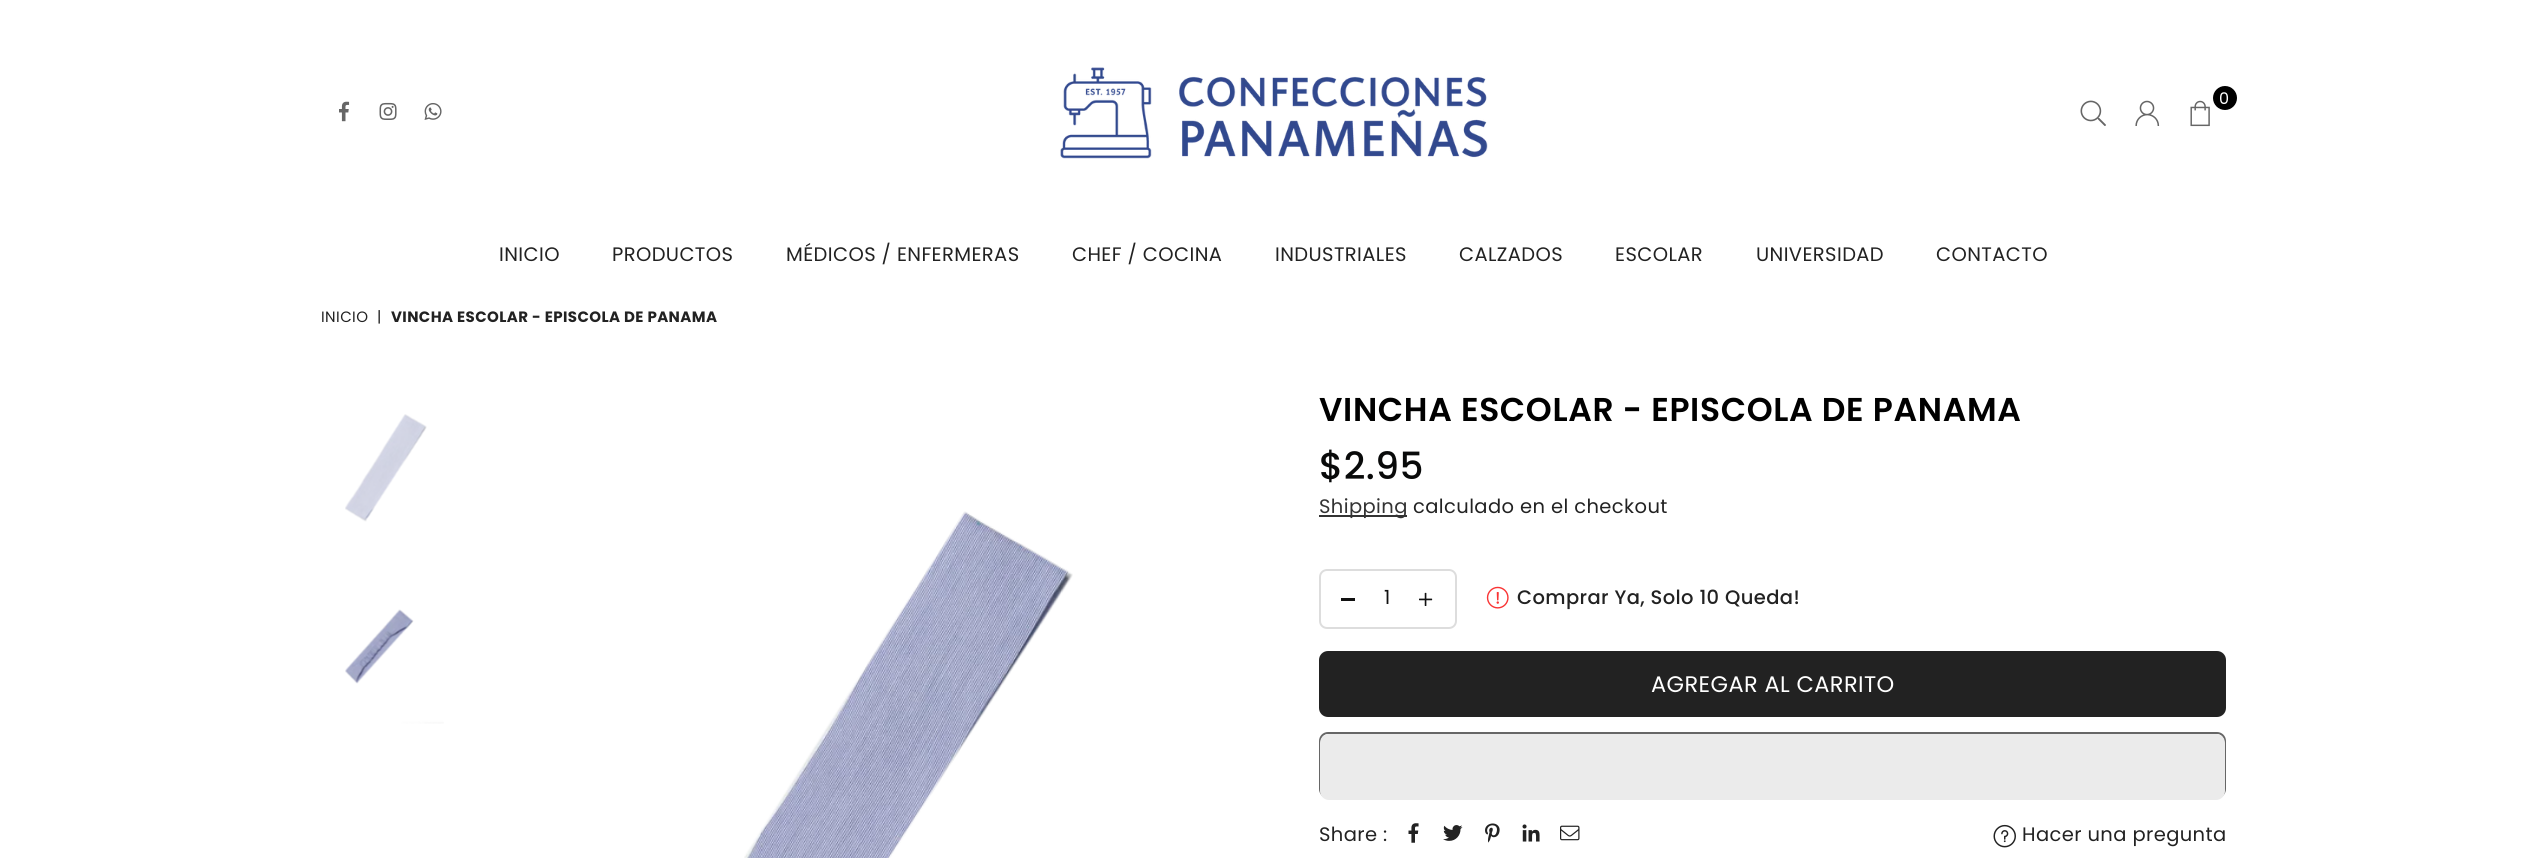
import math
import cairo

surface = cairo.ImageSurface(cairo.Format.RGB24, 2546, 858)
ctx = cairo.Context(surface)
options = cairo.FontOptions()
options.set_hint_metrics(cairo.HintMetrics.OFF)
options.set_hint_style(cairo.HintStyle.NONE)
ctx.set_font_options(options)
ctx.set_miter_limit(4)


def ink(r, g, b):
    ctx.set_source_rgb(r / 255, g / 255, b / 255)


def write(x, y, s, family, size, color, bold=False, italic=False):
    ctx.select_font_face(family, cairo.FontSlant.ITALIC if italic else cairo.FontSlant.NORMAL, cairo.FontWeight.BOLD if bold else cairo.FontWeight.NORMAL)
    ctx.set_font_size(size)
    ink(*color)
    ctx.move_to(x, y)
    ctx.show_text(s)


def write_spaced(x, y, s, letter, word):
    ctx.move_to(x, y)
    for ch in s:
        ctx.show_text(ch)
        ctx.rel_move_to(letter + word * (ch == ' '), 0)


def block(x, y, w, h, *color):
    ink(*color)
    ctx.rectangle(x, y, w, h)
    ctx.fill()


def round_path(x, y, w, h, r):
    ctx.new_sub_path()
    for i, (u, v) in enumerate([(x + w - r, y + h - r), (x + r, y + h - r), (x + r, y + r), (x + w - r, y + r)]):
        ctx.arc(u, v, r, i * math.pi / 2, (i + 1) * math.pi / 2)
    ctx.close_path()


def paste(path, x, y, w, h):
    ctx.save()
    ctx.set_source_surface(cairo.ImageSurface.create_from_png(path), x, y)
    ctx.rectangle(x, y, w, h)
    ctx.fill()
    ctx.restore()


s1 = dict(family="Poppins", size=19.5, color=(17, 17, 17))

ink(255, 255, 255)
ctx.paint()
paste("pic1.png", 1060, 67, 428, 92)
ink(0, 0, 0)
ctx.arc(2225, 98, 12, 0, 2 * math.pi)
ctx.fill()
ctx.select_font_face("Poppins")
ctx.set_font_size(16)
ink(255, 255, 255)
write_spaced(2219, 104, "0", 0.4, 0)
paste("pic2.png", 2190, 100, 20, 27)
paste("pic3.png", 2080, 100, 26, 26)
paste("pic4.png", 2135, 100, 25, 26)
paste("pic5.png", 339, 101, 11, 21)
paste("pic6.png", 379, 102, 18, 18)
paste("pic7.png", 424, 103, 18, 17)
ctx.set_font_size(19.5)
ink(34, 34, 34)
write_spaced(499, 261, "INICIO", 0.4, 0)
write_spaced(612, 261, "PRODUCTOS", 0.4, 0)
write_spaced(786, 261, "MÉDICOS / ENFERMERAS", 0.4, 0)
write_spaced(1072, 261, "CHEF / COCINA", 0.4, 0)
write_spaced(1275, 261, "INDUSTRIALES", 0.4, 0)
write_spaced(1459, 261, "CALZADOS", 0.4, 0)
write_spaced(1615, 261, "ESCOLAR", 0.4, 0)
write_spaced(1756, 261, "UNIVERSIDAD", 0.4, 0)
write_spaced(1936, 261, "CONTACTO", 0.4, 0)
ctx.set_font_size(15)
write_spaced(321, 322, "INICIO", 0.4, 0)
write_spaced(377, 322, "|", 0.4, 0)
ctx.select_font_face("Poppins", cairo.FontSlant.NORMAL, cairo.FontWeight.BOLD)
write_spaced(391, 322, "VINCHA ESCOLAR - EPISCOLA DE PANAMA", 0.4, 0)
paste("pic8.png", 345, 414, 82, 108)
paste("pic9.png", 345, 609, 99, 115)
paste("pic10.png", 744, 511, 329, 347)
ctx.select_font_face("Poppins SemiBold")
ctx.set_font_size(33)
ink(0, 0, 0)
write_spaced(1319, 421, "VINCHA ESCOLAR - EPISCOLA DE PANAMA", 0.65, 0)
ctx.select_font_face("Poppins Medium")
ctx.set_font_size(37.5)
ink(9, 10, 10)
write_spaced(1319, 479, "$2.95", 0.4, 0)
block(1319, 515, 88, 2, 51, 51, 51)
ctx.select_font_face("Poppins")
ctx.set_font_size(19.5)
write_spaced(1319, 513, "Shipping", 0.4, 0)
ink(34, 34, 34)
write_spaced(1413, 513, "calculado en el checkout", 0.4, 0)
round_path(1320, 570, 136, 58, 7)
ink(221, 221, 221)
ctx.stroke()
block(1341, 598, 14, 3, 17, 17, 17)
write(1384, 604, "1", **s1)
paste("pic11.png", 1419, 592, 14, 14)
paste("pic12.png", 1486, 586, 23, 23)
ctx.select_font_face("Poppins Medium")
ink(34, 34, 34)
write_spaced(1517, 604, "Comprar Ya, Solo 10 Queda!", 0.4, 0)
round_path(1319, 651, 907, 66, 9)
ctx.fill()
ctx.select_font_face("Poppins")
ctx.set_font_size(22.5)
ink(255, 255, 255)
write_spaced(1651, 692, "AGREGAR AL CARRITO", 0.4, 0)
round_path(1320, 733, 905, 64, 8)
ink(102, 102, 102)
ctx.stroke()
ink(235, 235, 235)
round_path(1320, 734, 905, 66, 9)
ctx.fill()
ctx.set_font_size(19.5)
ink(34, 34, 34)
write_spaced(1319, 841, "Share :", 0.4, 0)
paste("pic13.png", 1408, 823, 11, 20)
paste("pic14.png", 1443, 825, 20, 16)
paste("pic15.png", 1485, 823, 15, 20)
paste("pic16.png", 1522, 824, 18, 18)
paste("pic17.png", 1560, 825, 20, 16)
paste("pic18.png", 1993, 824, 23, 24)
write_spaced(2022, 841, "Hacer una pregunta", 0.4, 0)
surface.write_to_png("screenshot.png")
